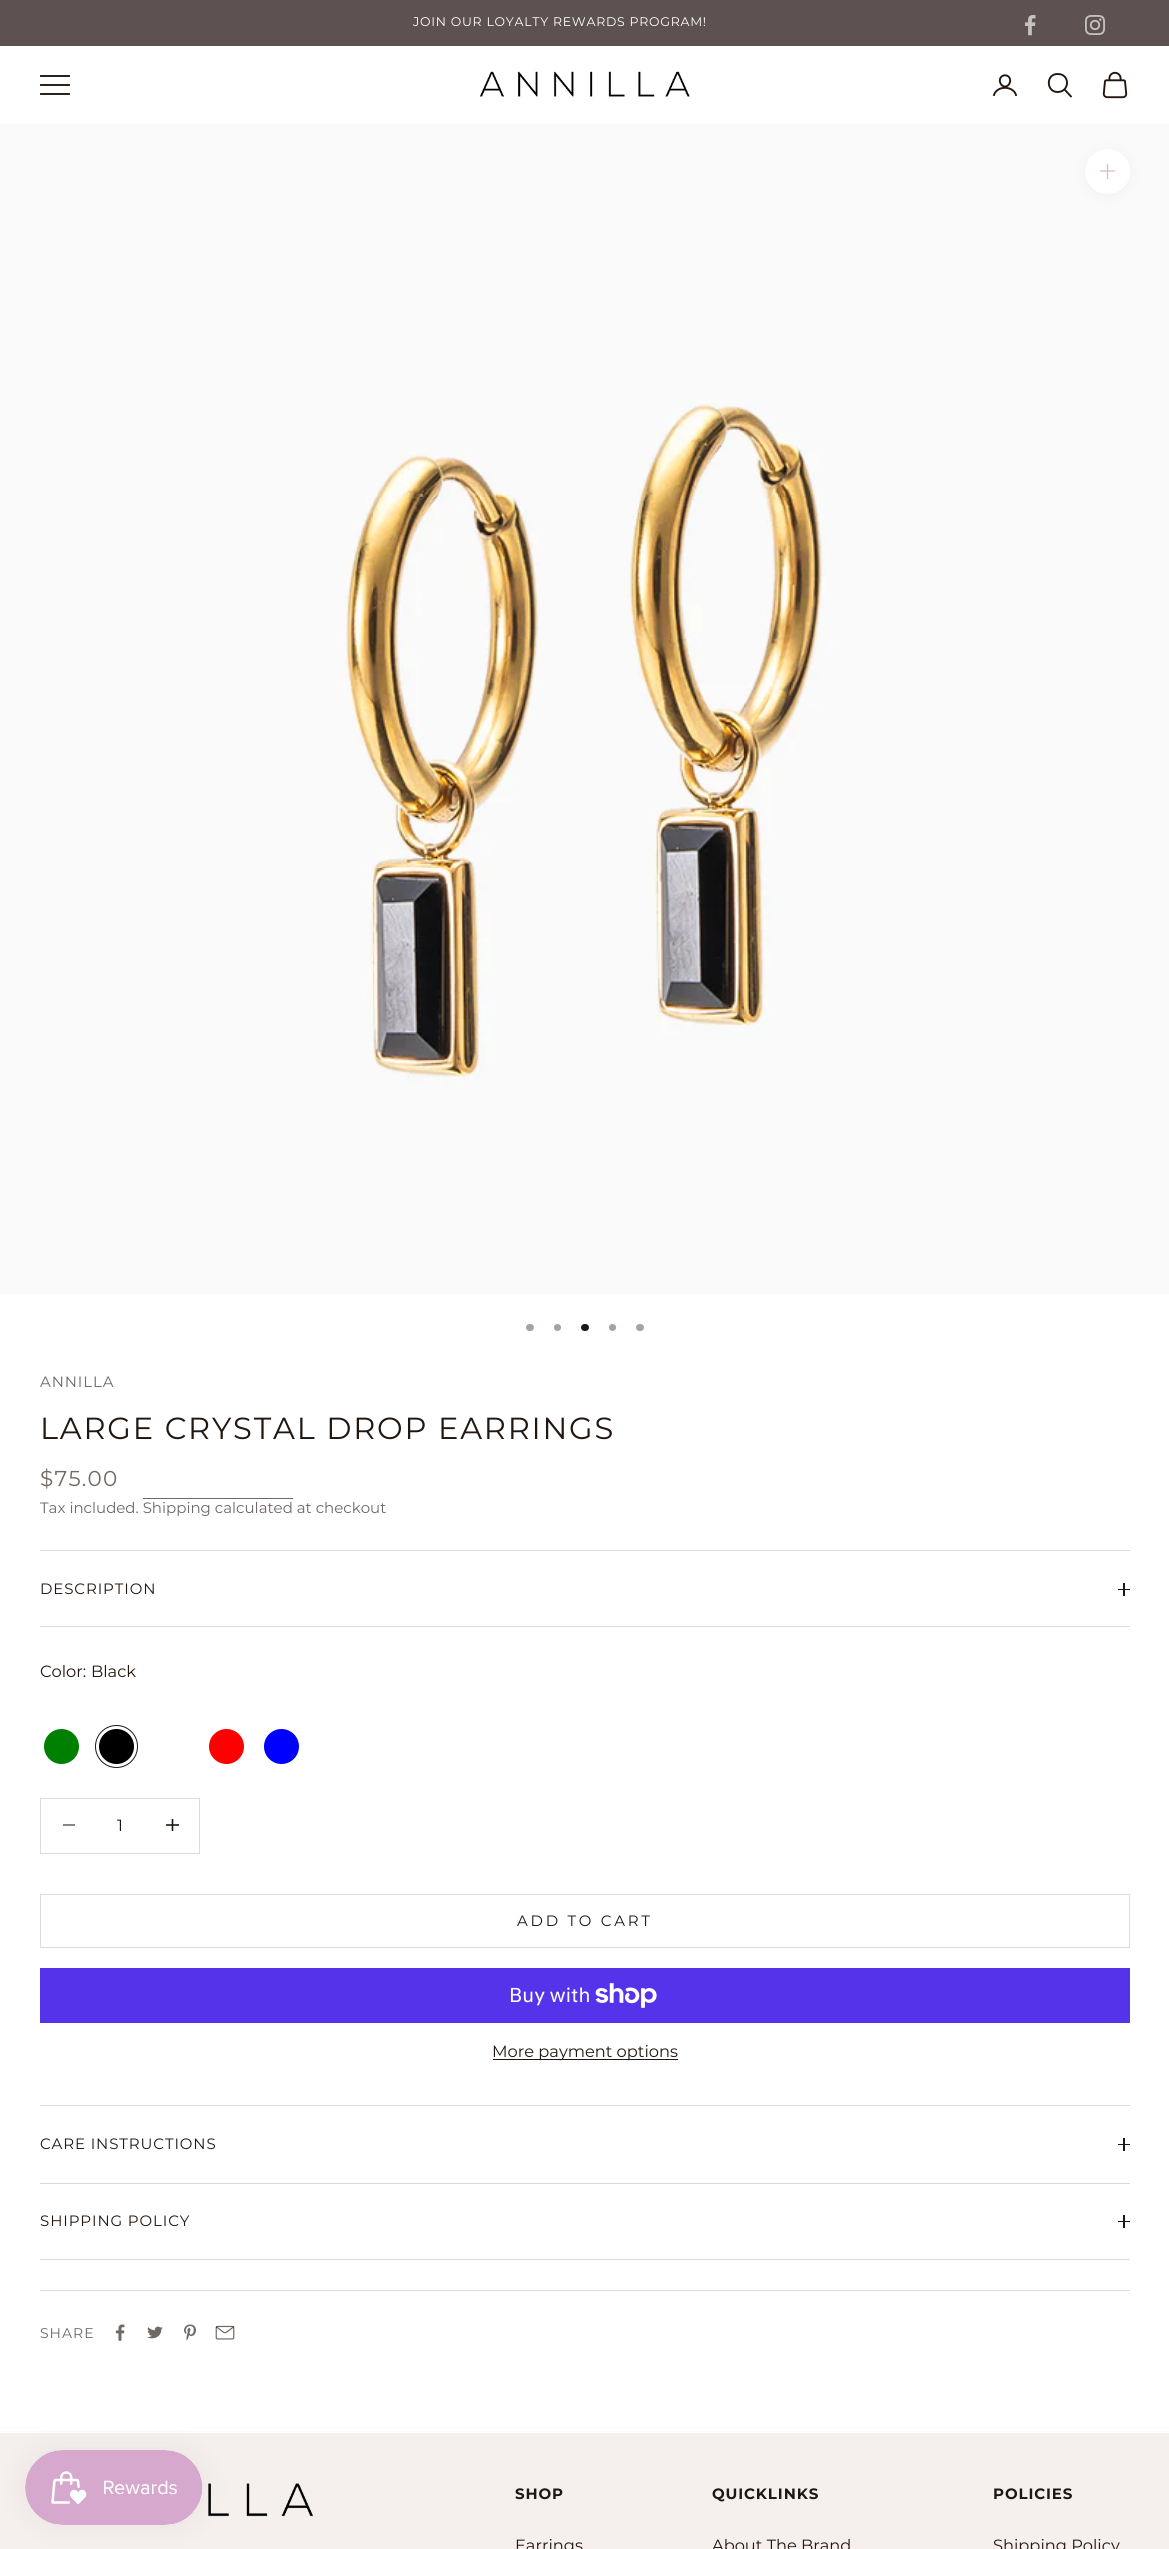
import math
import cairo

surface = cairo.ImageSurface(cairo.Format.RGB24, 1169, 2549)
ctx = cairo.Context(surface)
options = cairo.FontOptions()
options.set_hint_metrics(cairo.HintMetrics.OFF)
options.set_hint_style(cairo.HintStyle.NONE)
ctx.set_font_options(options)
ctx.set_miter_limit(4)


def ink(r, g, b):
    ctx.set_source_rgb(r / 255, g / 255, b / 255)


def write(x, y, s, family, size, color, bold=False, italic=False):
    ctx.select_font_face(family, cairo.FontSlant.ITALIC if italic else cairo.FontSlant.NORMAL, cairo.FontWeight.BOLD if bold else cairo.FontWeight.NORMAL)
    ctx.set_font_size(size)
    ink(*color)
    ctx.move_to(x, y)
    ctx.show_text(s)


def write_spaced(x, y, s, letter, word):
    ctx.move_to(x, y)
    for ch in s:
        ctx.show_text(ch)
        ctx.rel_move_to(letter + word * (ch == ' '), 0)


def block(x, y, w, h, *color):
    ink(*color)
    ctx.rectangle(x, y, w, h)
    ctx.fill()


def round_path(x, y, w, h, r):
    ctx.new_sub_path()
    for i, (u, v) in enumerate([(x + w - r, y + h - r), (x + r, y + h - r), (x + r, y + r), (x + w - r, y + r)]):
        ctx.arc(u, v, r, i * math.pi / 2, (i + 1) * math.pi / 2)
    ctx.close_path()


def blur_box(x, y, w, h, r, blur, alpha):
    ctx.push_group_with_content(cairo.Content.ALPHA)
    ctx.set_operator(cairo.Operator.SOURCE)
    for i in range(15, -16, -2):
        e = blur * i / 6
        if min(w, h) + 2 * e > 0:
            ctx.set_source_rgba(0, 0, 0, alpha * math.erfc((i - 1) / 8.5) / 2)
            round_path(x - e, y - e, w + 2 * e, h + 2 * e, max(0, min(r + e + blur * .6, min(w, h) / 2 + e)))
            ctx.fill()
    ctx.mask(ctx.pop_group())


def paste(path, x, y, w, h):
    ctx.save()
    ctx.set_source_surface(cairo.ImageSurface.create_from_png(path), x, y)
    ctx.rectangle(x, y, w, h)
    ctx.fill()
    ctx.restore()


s1 = dict(family="Montserrat", size=15, color=(111, 104, 100))
s2 = dict(family="Montserrat", size=16.25, color=(34, 23, 16))
s3 = dict(family="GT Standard", size=20, color=(255, 255, 255))

ink(255, 255, 255)
ctx.paint()
block(0, 0, 1169, 46, 94, 81, 81)
ctx.select_font_face("Montserrat")
ctx.set_font_size(12.5)
ink(255, 255, 255)
write_spaced(413, 26, "JOIN OUR LOYALTY REWARDS PROGRAM!", 0.75, 0)
paste("pic1.png", 1025, 15, 11, 21)
paste("pic2.png", 1085, 15, 20, 20)
ctx.new_path()
ctx.move_to(41, 94)
ctx.line_to(69, 94)
ctx.move_to(41, 85)
ctx.line_to(69, 85)
ctx.move_to(41, 76)
ctx.line_to(69, 76)
ink(34, 23, 16)
ctx.set_line_width(1.9)
ctx.set_line_cap(cairo.LineCap.SQUARE)
ctx.stroke()
paste("pic3.png", 479, 71, 211, 26)
paste("pic4.png", 992, 74, 26, 23)
ctx.new_path()
ctx.move_to(1058, 74)
ctx.curve_to(1045.5, 73.5, 1046, 92.5, 1058, 92)
ctx.curve_to(1070, 91.5, 1070, 74, 1058, 74)
ctx.close_path()
ctx.set_line_cap(cairo.LineCap.BUTT)
ctx.stroke()
ctx.new_path()
ctx.move_to(1065, 90)
ctx.line_to(1071, 96.5)
ctx.set_line_cap(cairo.LineCap.ROUND)
ctx.stroke()
paste("pic5.png", 1102, 71, 26, 28)
paste("pic6.png", 0, 124, 1169, 1170)
ink(219, 179, 211)
blur_box(1085, 151, 45, 45, 22.5, 6, 0.15)
ink(255, 255, 255)
ctx.arc(1107.5, 171.5, 22.5, 0, 2 * math.pi)
ctx.fill()
ctx.new_path()
ctx.move_to(1107.5, 164)
ctx.line_to(1107.5, 179)
ctx.move_to(1100, 171)
ctx.line_to(1115, 171)
ink(219, 179, 211)
ctx.set_line_width(1.2)
ctx.set_line_cap(cairo.LineCap.BUTT)
ctx.stroke()
ink(167, 162, 159)
round_path(526, 1324, 8, 7, 3.5)
ctx.fill()
ctx.arc(557.5, 1327.5, 3.5, 0, 2 * math.pi)
ctx.fill()
ink(34, 23, 16)
round_path(581, 1324, 8, 7, 3.5)
ctx.fill()
ink(167, 162, 159)
ctx.arc(612.5, 1327.5, 3.5, 0, 2 * math.pi)
ctx.fill()
round_path(636, 1324, 8, 7, 3.5)
ctx.fill()
ctx.set_font_size(15)
ink(111, 104, 100)
write_spaced(40, 1387, "ANNILLA", 0.9, 0)
ctx.set_font_size(30.5)
ink(34, 23, 16)
write_spaced(40, 1439, "LARGE CRYSTAL DROP EARRINGS", 1.8, 0)
ctx.set_font_size(21.5)
ink(111, 104, 100)
write_spaced(40, 1486, "$75.00", 1.25, 0)
block(143, 1498, 150, 1, 111, 104, 100)
write(40, 1513, "Tax included. Shipping calculated at checkout", **s1)
block(40, 1550, 1090, 1, 222, 220, 219)
block(40, 1626, 1090, 1, 222, 220, 219)
ink(34, 23, 16)
write_spaced(40, 1594, "DESCRIPTION", 0.9, 0)
block(1123, 1583, 2, 13, 34, 23, 16)
block(1118, 1589, 12, 1, 34, 23, 16)
write(40, 1677, "Color:", **s2)
write(91, 1677, "Black", **s2)
ink(0, 128, 0)
ctx.new_path()
ctx.arc(61.5, 1746.5, 17.5, 0, 2 * math.pi)
ctx.fill()
ink(0, 0, 0)
ctx.arc(116.5, 1746.5, 17.5, 0, 2 * math.pi)
ctx.fill()
ctx.arc(116.5, 1746.5, 21, 0, 2 * math.pi)
ink(34, 23, 16)
ctx.set_line_width(1)
ctx.stroke()
ink(255, 0, 0)
ctx.arc(226.5, 1746.5, 17.5, 0, 2 * math.pi)
ctx.fill()
ink(0, 0, 255)
ctx.arc(281.5, 1746.5, 17.5, 0, 2 * math.pi)
ctx.fill()
ctx.rectangle(40.5, 1798.5, 159, 55)
ink(222, 220, 219)
ctx.stroke()
block(63, 1824, 12, 2, 140, 134, 131)
write(117, 1831, "1", **s2)
ctx.new_path()
ctx.move_to(172.5, 1819)
ctx.line_to(172.5, 1831)
ctx.move_to(166, 1825)
ctx.line_to(179, 1825)
ctx.set_line_width(1.6)
ctx.stroke()
ctx.rectangle(40.5, 1894.5, 1089, 53)
ink(222, 220, 219)
ctx.set_line_width(1)
ctx.stroke()
ctx.set_font_size(15)
ink(34, 23, 16)
write_spaced(517, 1926, "ADD TO CART", 2.75, 0)
block(40, 1968, 1090, 55, 84, 51, 235)
write(509, 2002, "Buy with", **s3)
paste("pic7.png", 595, 1983, 62, 25)
block(493, 2059, 185, 1, 34, 23, 16)
write(492, 2057, "More payment options", **s2)
block(40, 2105, 1090, 1, 222, 220, 219)
block(40, 2183, 1090, 1, 222, 220, 219)
ctx.set_font_size(15)
ink(34, 23, 16)
write_spaced(40, 2149, "CARE INSTRUCTIONS", 0.9, 0)
block(1123, 2138, 2, 13, 34, 23, 16)
block(1118, 2144, 12, 1, 34, 23, 16)
block(40, 2259, 1090, 1, 222, 220, 219)
ink(34, 23, 16)
write_spaced(40, 2226, "SHIPPING POLICY", 0.9, 0)
block(1123, 2215, 2, 13, 34, 23, 16)
block(1118, 2221, 12, 1, 34, 23, 16)
block(40, 2290, 1090, 1, 222, 220, 219)
ctx.set_font_size(14)
ink(111, 104, 100)
write_spaced(40, 2338, "SHARE", 1, 0)
paste("pic8.png", 116, 2324, 9, 17)
paste("pic9.png", 147, 2326, 16, 13)
paste("pic10.png", 184, 2324, 12, 17)
paste("pic11.png", 215, 2325, 20, 15)
block(0, 2431, 1169, 1, 255, 250, 250)
block(0, 2433, 1169, 116, 245, 240, 238)
paste("pic13.png", 208, 2483, 105, 34)
ink(0, 0, 0)
blur_box(25, 2450, 178, 75, 37.5, 15.5, 0.05)
paste("pic12.png", 25, 2450, 178, 75)
ctx.select_font_face("Montserrat", cairo.FontSlant.NORMAL, cairo.FontWeight.BOLD)
ctx.set_font_size(15)
ink(34, 23, 16)
write_spaced(515, 2499, "SHOP", 0.9, 0)
write(515, 2551, "Earrings", **s2)
ctx.select_font_face("Montserrat", cairo.FontSlant.NORMAL, cairo.FontWeight.BOLD)
ctx.set_font_size(15)
write_spaced(712, 2499, "QUICKLINKS", 0.9, 0)
write(712, 2551, "About The Brand", **s2)
ctx.select_font_face("Montserrat", cairo.FontSlant.NORMAL, cairo.FontWeight.BOLD)
ctx.set_font_size(15)
write_spaced(993, 2499, "POLICIES", 0.9, 0)
write(993, 2551, "Shipping Policy", **s2)
surface.write_to_png("screenshot.png")
